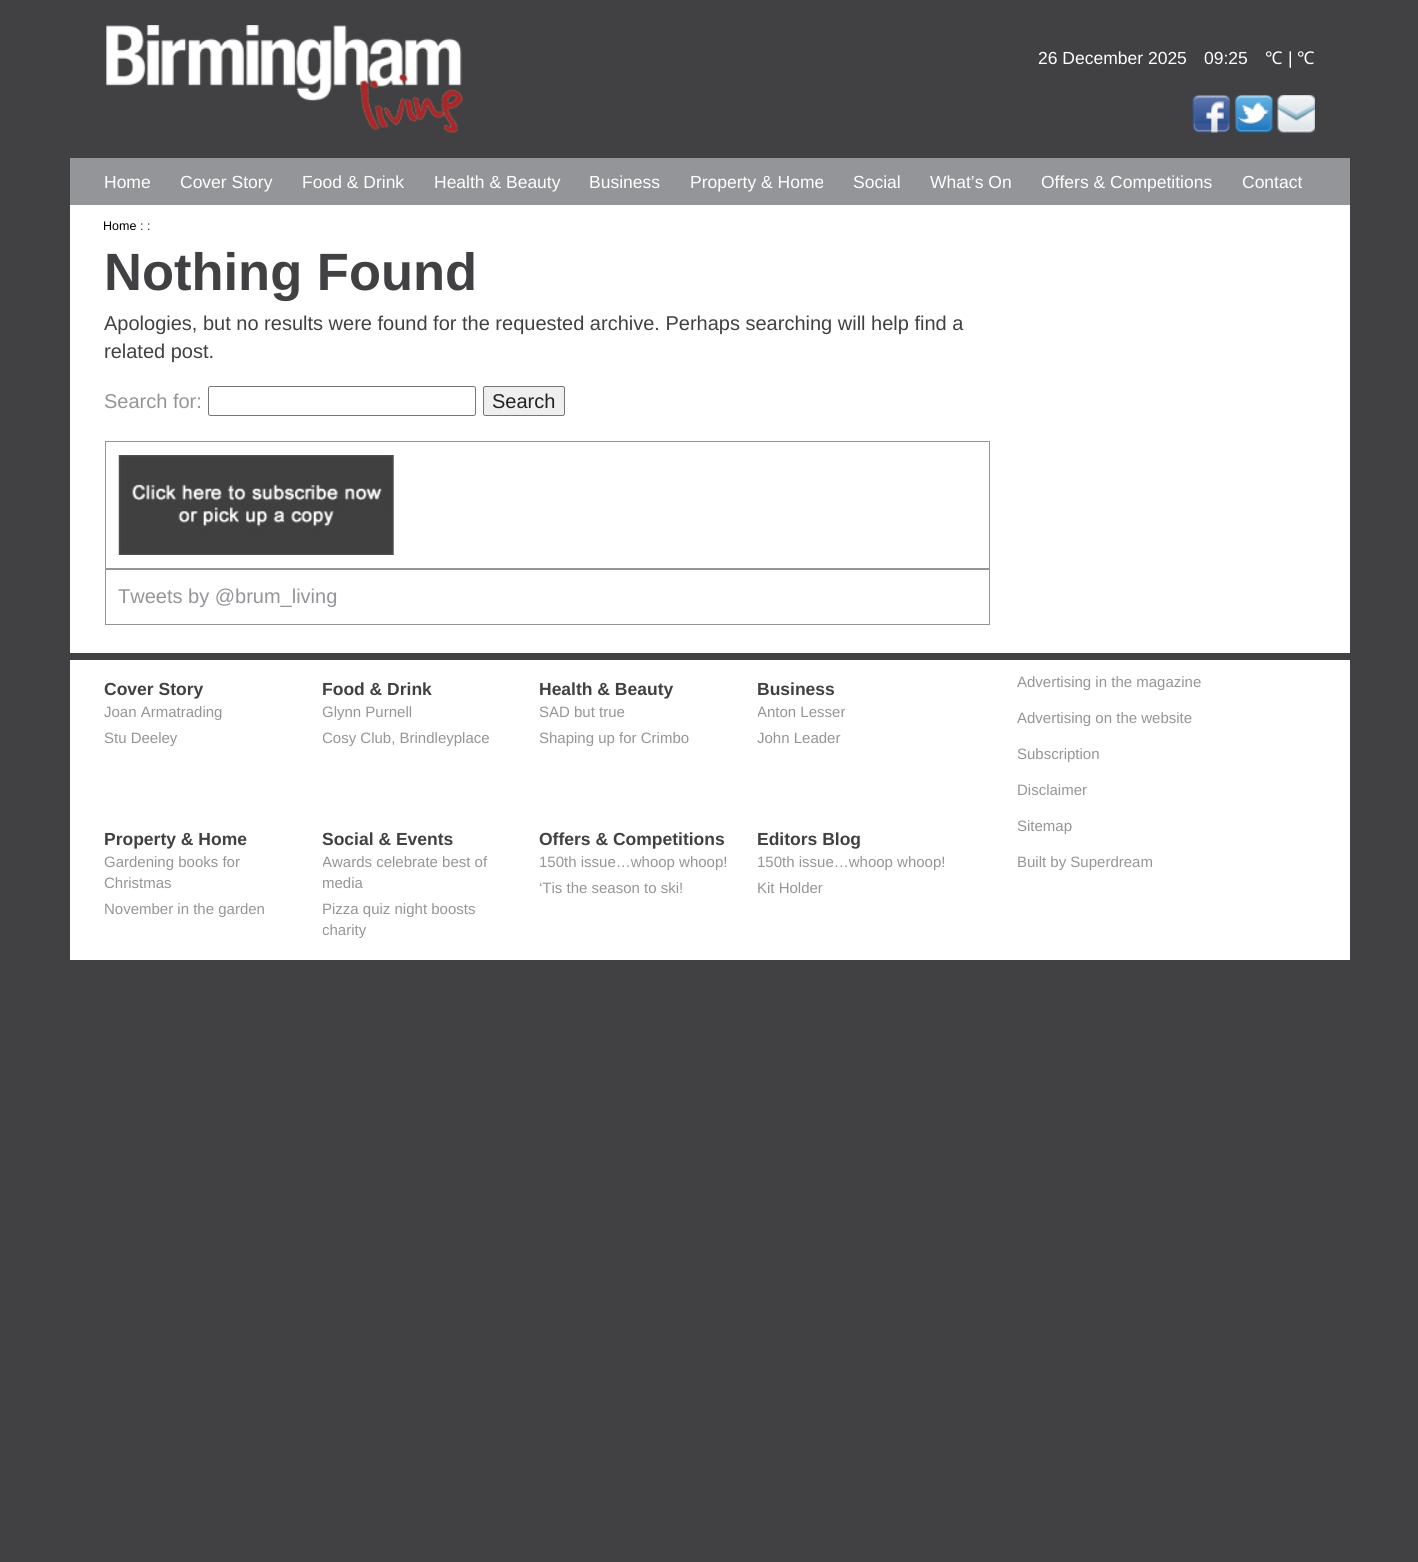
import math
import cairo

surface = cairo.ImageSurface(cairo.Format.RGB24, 1418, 1562)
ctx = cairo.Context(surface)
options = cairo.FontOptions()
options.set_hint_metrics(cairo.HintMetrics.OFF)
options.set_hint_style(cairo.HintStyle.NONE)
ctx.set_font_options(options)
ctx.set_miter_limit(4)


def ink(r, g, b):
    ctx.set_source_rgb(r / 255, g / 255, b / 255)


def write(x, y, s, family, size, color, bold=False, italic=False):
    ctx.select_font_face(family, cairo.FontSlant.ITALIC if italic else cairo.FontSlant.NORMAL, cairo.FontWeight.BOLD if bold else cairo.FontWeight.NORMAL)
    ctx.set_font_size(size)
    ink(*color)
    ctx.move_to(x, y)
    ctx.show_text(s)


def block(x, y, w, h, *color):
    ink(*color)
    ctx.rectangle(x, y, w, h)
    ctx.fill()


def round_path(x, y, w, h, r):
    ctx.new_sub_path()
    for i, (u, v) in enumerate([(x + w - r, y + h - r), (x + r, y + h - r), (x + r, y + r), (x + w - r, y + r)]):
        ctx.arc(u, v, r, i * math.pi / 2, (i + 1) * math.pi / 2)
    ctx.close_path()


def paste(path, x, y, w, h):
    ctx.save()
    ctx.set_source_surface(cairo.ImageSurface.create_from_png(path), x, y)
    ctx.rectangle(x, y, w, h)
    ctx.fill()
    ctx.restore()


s1 = dict(family="Liberation Sans", size=17.5, color=(255, 255, 255))
s2 = dict(family="Noto Sans", size=17.5, color=(255, 255, 255))
s3 = dict(family="Liberation Sans", size=12.5, color=(0, 0, 0))
s4 = dict(family="Liberation Sans", size=12.5, color=(34, 34, 34))
s5 = dict(family="Liberation Sans", size=52.5, color=(65, 64, 66), bold=True)
s6 = dict(family="Liberation Sans", size=20, color=(65, 64, 66))
s7 = dict(family="Liberation Sans", size=20, color=(147, 149, 152))
s8 = dict(family="Liberation Sans", size=20, color=(34, 34, 34))
s9 = dict(family="Liberation Sans", size=17.5, color=(65, 64, 66), bold=True)
s10 = dict(family="Liberation Sans", size=15, color=(147, 149, 152))

ink(65, 64, 66)
ctx.paint()
paste("pic1.png", 106, 25, 357, 108)
write(1038, 64, "26 December 2025", **s1)
write(1204, 64, "09:25", **s1)
write(1265, 64, "℃", **s2)
write(1288, 64, "|", **s1)
write(1297, 64, "℃", **s2)
paste("pic2.png", 1192, 95, 38, 38)
paste("pic3.png", 1235, 95, 38, 38)
paste("pic4.png", 1277, 95, 38, 38)
block(70, 158, 1280, 47, 147, 149, 152)
write(104, 188, "Home", **s1)
write(180, 188, "Cover Story", **s1)
write(302, 188, "Food & Drink", **s1)
write(434, 188, "Health & Beauty", **s1)
write(589, 188, "Business", **s1)
write(690, 188, "Property & Home", **s1)
write(853, 188, "Social", **s1)
write(930, 188, "What’s On", **s1)
write(1041, 188, "Offers & Competitions", **s1)
write(1242, 188, "Contact", **s1)
block(70, 205, 1280, 448, 255, 255, 255)
write(103, 230, "Home", **s3)
write(140, 230, ": :", **s4)
write(104, 290, "Nothing Found", **s5)
write(104, 330, "Apologies, but no results were found for the requested archive. Perhaps searching will help find a", **s6)
write(104, 358, "related post.", **s6)
write(104, 408, "Search for:", **s7)
round_path(208.5, 386.5, 267, 29, 2)
ink(118, 118, 118)
ctx.set_line_width(1)
ctx.stroke()
ink(239, 239, 239)
round_path(483.5, 386.5, 81, 29, 2)
ctx.fill_preserve()
ink(118, 118, 118)
ctx.stroke()
write(492, 408, "Search", **s8)
ctx.rectangle(105.5, 441.5, 884, 127)
ink(147, 149, 152)
ctx.stroke()
paste("pic5.png", 118, 455, 276, 100)
ctx.rectangle(105.5, 569.5, 884, 55)
ctx.stroke()
write(118, 603, "Tweets by @brum_living", **s7)
block(70, 660, 1280, 300, 255, 255, 255)
write(104, 695, "Cover Story", **s9)
write(104, 717, "Joan Armatrading", **s10)
write(104, 743, "Stu Deeley", **s10)
write(322, 695, "Food & Drink", **s9)
ctx.save()
ctx.rectangle(323, 660, 200, 150)
ctx.clip()
write(322, 717, "Glynn Purnell", **s10)
write(322, 743, "Cosy Club, Brindleyplace", **s10)
ctx.restore()
write(539, 695, "Health & Beauty", **s9)
write(539, 717, "SAD but true", **s10)
write(539, 743, "Shaping up for Crimbo", **s10)
write(757, 695, "Business", **s9)
ctx.save()
ctx.rectangle(758, 660, 200, 150)
ctx.clip()
write(757, 717, "Anton Lesser", **s10)
ctx.restore()
write(757, 743, "John Leader", **s10)
write(104, 845, "Property & Home", **s9)
write(104, 867, "Gardening books for", **s10)
write(104, 888, "Christmas", **s10)
write(104, 914, "November in the garden", **s10)
write(322, 845, "Social & Events", **s9)
ctx.save()
ctx.rectangle(323, 810, 200, 150)
ctx.clip()
write(322, 867, "Awards celebrate best of", **s10)
write(322, 888, "media", **s10)
ctx.restore()
write(322, 914, "Pizza quiz night boosts", **s10)
ctx.save()
ctx.rectangle(323, 810, 200, 150)
ctx.clip()
write(322, 935, "charity", **s10)
ctx.restore()
write(539, 845, "Offers & Competitions", **s9)
write(539, 867, "150th issue…whoop whoop!", **s10)
write(539, 893, "‘Tis the season to ski!", **s10)
write(757, 845, "Editors Blog", **s9)
write(757, 867, "150th issue…whoop whoop!", **s10)
write(757, 893, "Kit Holder", **s10)
write(1017, 687, "Advertising in the magazine", **s10)
write(1017, 723, "Advertising on the website", **s10)
write(1017, 759, "Subscription", **s10)
write(1017, 795, "Disclaimer", **s10)
write(1017, 831, "Sitemap", **s10)
write(1017, 867, "Built by Superdream", **s10)
surface.write_to_png("screenshot.png")
